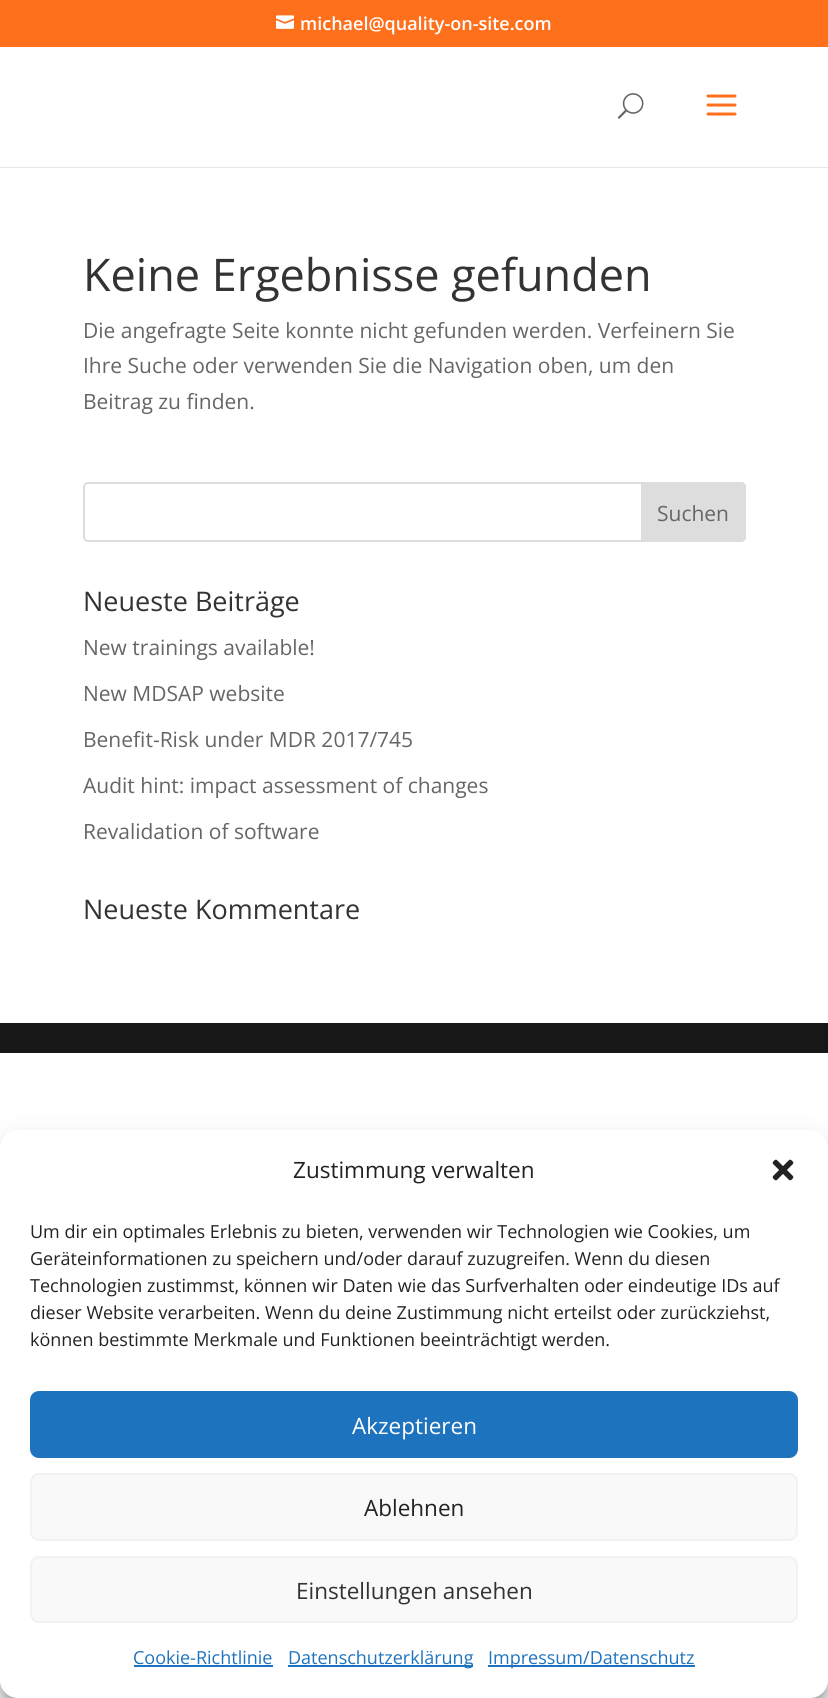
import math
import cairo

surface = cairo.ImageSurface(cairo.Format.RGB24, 828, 1698)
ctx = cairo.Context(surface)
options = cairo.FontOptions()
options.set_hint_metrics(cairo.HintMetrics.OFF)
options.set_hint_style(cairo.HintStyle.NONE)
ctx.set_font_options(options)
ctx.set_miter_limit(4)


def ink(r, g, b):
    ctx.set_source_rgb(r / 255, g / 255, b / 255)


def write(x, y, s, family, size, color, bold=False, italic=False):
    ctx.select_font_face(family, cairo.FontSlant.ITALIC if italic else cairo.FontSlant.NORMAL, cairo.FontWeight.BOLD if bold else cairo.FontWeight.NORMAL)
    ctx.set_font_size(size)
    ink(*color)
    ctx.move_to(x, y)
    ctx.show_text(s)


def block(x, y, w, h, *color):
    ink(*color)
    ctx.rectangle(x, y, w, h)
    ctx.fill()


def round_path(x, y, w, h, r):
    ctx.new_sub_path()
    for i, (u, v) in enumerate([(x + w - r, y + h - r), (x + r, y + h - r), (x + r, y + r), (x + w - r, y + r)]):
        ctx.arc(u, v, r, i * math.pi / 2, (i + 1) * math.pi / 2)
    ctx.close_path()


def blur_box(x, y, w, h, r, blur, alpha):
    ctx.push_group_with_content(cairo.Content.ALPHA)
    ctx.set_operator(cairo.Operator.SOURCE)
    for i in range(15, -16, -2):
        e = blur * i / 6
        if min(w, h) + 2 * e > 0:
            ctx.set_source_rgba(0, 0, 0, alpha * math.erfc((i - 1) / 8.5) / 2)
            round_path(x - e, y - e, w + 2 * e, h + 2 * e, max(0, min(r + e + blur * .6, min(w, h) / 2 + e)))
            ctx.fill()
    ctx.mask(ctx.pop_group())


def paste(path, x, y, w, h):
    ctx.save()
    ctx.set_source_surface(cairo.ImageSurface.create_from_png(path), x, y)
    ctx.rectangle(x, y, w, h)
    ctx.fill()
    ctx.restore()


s1 = dict(family="Open Sans SemiBold", size=18, color=(255, 255, 255))
s2 = dict(family="Open Sans", size=45, color=(51, 51, 51))
s3 = dict(family="Open Sans", size=21, color=(102, 102, 102))
s4 = dict(family="Open Sans", size=27, color=(51, 51, 51))
s5 = dict(family="Open Sans", size=22.5, color=(34, 34, 34))
s6 = dict(family="Open Sans", size=18, color=(34, 34, 34))
s7 = dict(family="Open Sans", size=22.5, color=(255, 255, 255))
s8 = dict(family="Open Sans", size=22.5, color=(51, 51, 51))
s9 = dict(family="Open Sans", size=18, color=(30, 115, 190))

ink(255, 255, 255)
ctx.paint()
block(0, 0, 828, 47, 255, 112, 29)
paste("pic1.png", 276, 15, 18, 14)
write(300, 30, "michael@quality-on-site.com", **s1)
block(0, 167, 828, 1, 230, 230, 230)
paste("pic2.png", 617, 93, 27, 26)
paste("pic3.png", 706, 94, 31, 22)
write(83, 291, "Keine Ergebnisse gefunden", **s2)
write(83, 338, "Die angefragte Seite konnte nicht gefunden werden. Verfeinern Sie", **s3)
write(83, 373, "Ihre Suche oder verwenden Sie die Navigation oben, um den", **s3)
write(83, 409, "Beitrag zu finden.", **s3)
round_path(84, 483, 661, 58, 4)
ink(221, 221, 221)
ctx.stroke()
ctx.new_path()
ctx.move_to(642, 483)
ctx.line_to(741, 483)
ctx.curve_to(743, 483, 745, 485, 745, 487)
ctx.line_to(745, 537)
ctx.curve_to(745, 539, 743, 541, 741, 541)
ctx.line_to(642, 541)
ctx.close_path()
ctx.fill_preserve()
ctx.stroke()
write(657, 521, "Suchen", **s3)
write(83, 611, "Neueste Beiträge", **s4)
write(83, 655, "New trainings available!", **s3)
write(83, 701, "New MDSAP website", **s3)
write(83, 747, "Benefit-Risk under MDR 2017/745", **s3)
write(83, 793, "Audit hint: impact assessment of changes", **s3)
write(83, 839, "Revalidation of software", **s3)
write(83, 919, "Neueste Kommentare", **s4)
block(0, 1023, 828, 30, 23, 23, 23)
ink(0, 0, 0)
blur_box(0, 1139, 828, 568, 18, 4.5, 0.23)
blur_box(0, 1145, 828, 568, 18, 15, 0.19)
ink(255, 255, 255)
round_path(0, 1130, 828, 568, 18)
ctx.fill()
write(293, 1178, "Zustimmung verwalten", **s5)
paste("pic4.png", 772, 1159, 22, 22)
write(30, 1238, "Um dir ein optimales Erlebnis zu bieten, verwenden wir Technologien wie Cookies, um", **s6)
write(30, 1265, "Geräteinformationen zu speichern und/oder darauf zuzugreifen. Wenn du diesen", **s6)
write(30, 1292, "Technologien zustimmst, können wir Daten wie das Surfverhalten oder eindeutige IDs auf", **s6)
write(30, 1319, "dieser Website verarbeiten. Wenn du deine Zustimmung nicht erteilst oder zurückziehst,", **s6)
write(30, 1346, "können bestimmte Merkmale und Funktionen beeinträchtigt werden.", **s6)
ink(30, 115, 190)
round_path(31, 1392, 766, 65, 8)
ctx.fill_preserve()
ctx.stroke()
write(352, 1434, "Akzeptieren", **s7)
ink(249, 249, 249)
round_path(31, 1474, 766, 66, 8)
ctx.fill_preserve()
ink(242, 242, 242)
ctx.stroke()
write(364, 1516, "Ablehnen", **s5)
ink(249, 249, 249)
round_path(31, 1557, 766, 65, 8)
ctx.fill_preserve()
ink(242, 242, 242)
ctx.stroke()
write(296, 1599, "Einstellungen ansehen", **s8)
write(133, 1664, "Cookie-Richtlinie", **s9)
block(134, 1665, 139, 2, 30, 115, 190)
block(288, 1665, 185, 2, 30, 115, 190)
write(288, 1664, "Datenschutzerklärung", **s9)
block(488, 1665, 207, 2, 30, 115, 190)
write(488, 1664, "Impressum/Datenschutz", **s9)
surface.write_to_png("screenshot.png")
